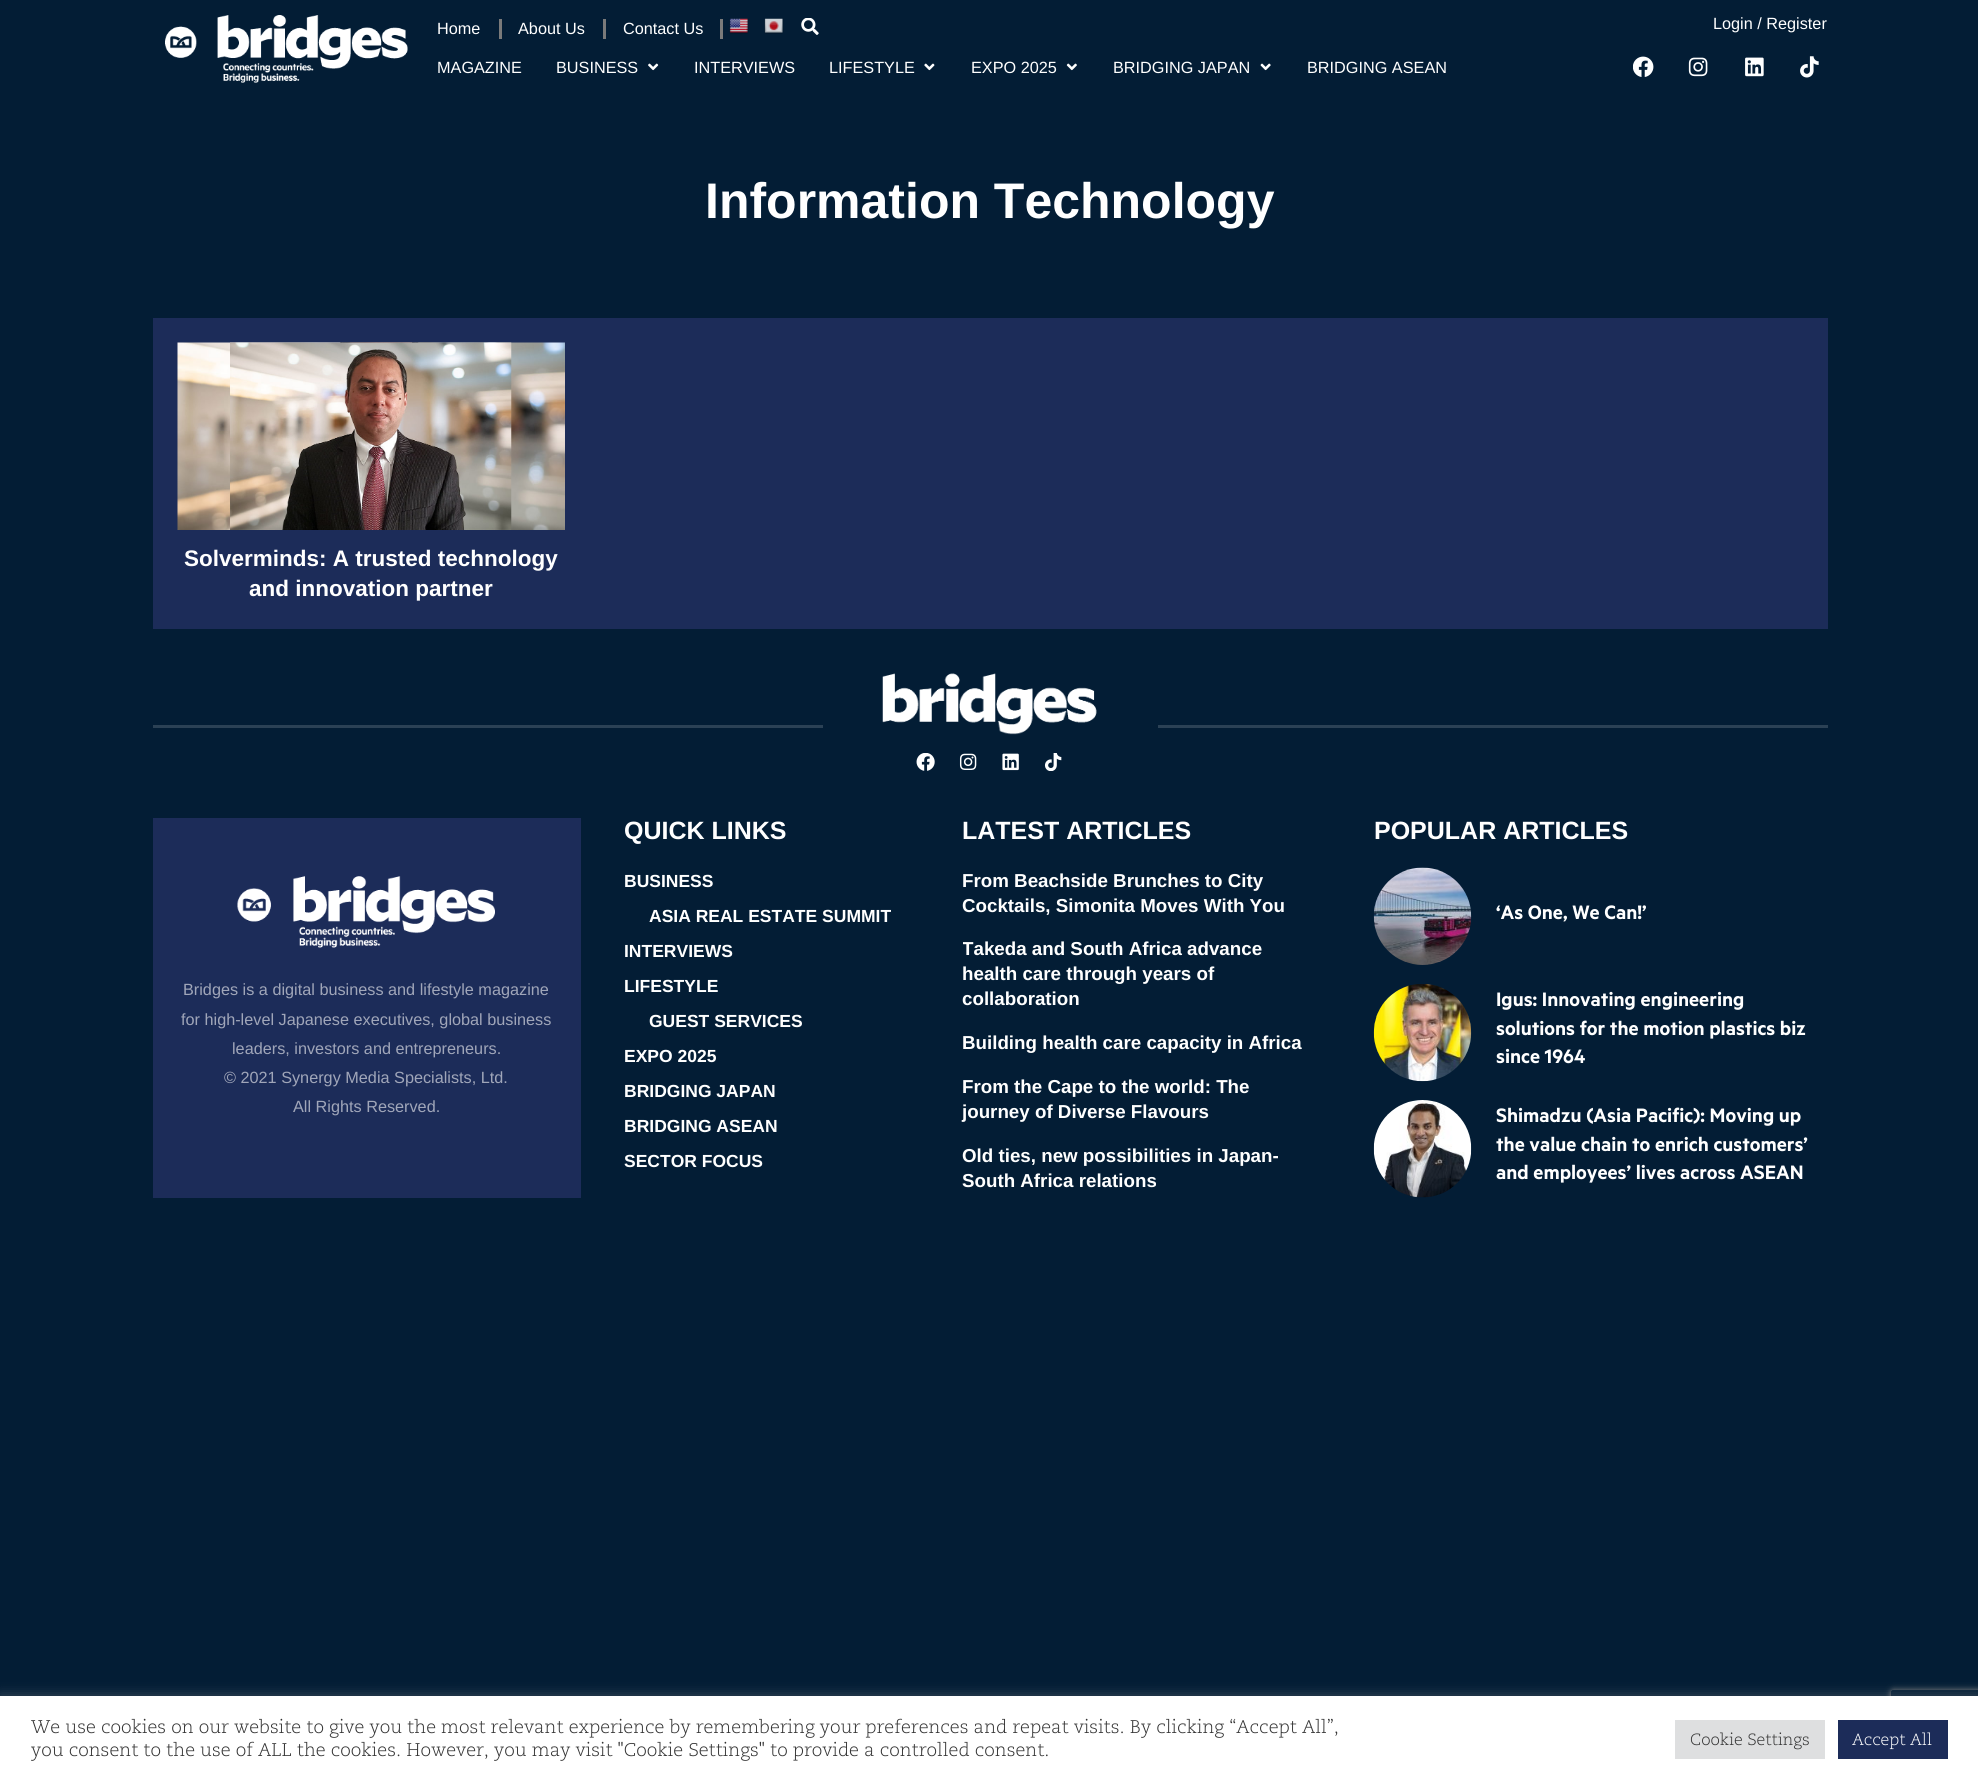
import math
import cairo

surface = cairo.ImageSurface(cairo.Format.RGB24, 1978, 1782)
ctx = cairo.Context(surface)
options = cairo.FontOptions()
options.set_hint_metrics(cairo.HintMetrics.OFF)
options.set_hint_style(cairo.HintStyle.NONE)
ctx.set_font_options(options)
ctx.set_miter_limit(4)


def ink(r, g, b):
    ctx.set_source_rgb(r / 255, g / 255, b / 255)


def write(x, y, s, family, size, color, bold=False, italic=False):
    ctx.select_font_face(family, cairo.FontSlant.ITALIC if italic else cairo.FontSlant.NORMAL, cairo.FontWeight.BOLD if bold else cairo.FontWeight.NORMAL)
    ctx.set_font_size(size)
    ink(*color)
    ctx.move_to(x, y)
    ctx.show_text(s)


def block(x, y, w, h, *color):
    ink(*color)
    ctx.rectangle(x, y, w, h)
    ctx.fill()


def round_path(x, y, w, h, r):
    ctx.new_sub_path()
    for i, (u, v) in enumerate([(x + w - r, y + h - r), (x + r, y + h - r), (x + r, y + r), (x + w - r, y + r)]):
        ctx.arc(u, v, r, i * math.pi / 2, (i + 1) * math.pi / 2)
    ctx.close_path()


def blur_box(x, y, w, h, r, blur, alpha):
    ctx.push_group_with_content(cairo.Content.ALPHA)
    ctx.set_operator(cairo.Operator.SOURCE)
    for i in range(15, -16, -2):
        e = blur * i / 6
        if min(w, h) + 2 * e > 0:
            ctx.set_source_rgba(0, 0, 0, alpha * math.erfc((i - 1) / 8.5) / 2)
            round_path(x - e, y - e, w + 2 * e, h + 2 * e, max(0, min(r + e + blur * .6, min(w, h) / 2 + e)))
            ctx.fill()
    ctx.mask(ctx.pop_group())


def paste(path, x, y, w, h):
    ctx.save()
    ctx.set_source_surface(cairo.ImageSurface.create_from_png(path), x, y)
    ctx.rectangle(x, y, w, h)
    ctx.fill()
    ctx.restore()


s1 = dict(family="Liberation Sans", size=16.25, color=(255, 255, 255))
s2 = dict(family="Liberation Sans", size=50, color=(255, 255, 255), bold=True)
s3 = dict(family="Liberation Sans", size=22.5, color=(255, 255, 255), bold=True)
s4 = dict(family="Liberation Sans", size=16.25, color=(160, 166, 185))
s5 = dict(family="Liberation Sans", size=25, color=(255, 255, 255), bold=True)
s6 = dict(family="Liberation Sans", size=17.5, color=(255, 255, 255), bold=True)
s7 = dict(family="Liberation Sans", size=18.75, color=(255, 255, 255), bold=True)
s8 = dict(family="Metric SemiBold", size=21.9, color=(255, 255, 255))
s9 = dict(family="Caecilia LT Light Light", size=18.33, color=(51, 51, 51))
s10 = dict(family="Caecilia LT Light Light", size=16.25, color=(51, 51, 51))
s11 = dict(family="Caecilia LT Light Light", size=16.25, color=(255, 255, 255))

ink(3, 29, 53)
ctx.paint()
paste("pic1.png", 165, 15, 243, 68)
write(437, 34, "Home", **s1)
block(499, 19, 3, 20, 122, 122, 122)
write(518, 34, "About Us", **s1)
block(603, 19, 3, 20, 122, 122, 122)
write(623, 34, "Contact Us", **s1)
block(720, 19, 3, 20, 122, 122, 122)
paste("pic2.png", 729, 18, 20, 16)
paste("pic3.png", 764, 18, 20, 16)
paste("pic4.png", 801, 18, 18, 17)
write(437, 73, "MAGAZINE", **s1)
write(556, 73, "BUSINESS", **s1)
paste("pic5.png", 648, 63, 11, 8)
write(694, 73, "INTERVIEWS", **s1)
write(829, 73, "LIFESTYLE", **s1)
paste("pic6.png", 924, 63, 11, 8)
write(971, 73, "EXPO 2025", **s1)
paste("pic7.png", 1066, 63, 11, 8)
write(1113, 73, "BRIDGING JAPAN", **s1)
paste("pic8.png", 1260, 63, 11, 8)
write(1307, 73, "BRIDGING ASEAN", **s1)
write(1713, 29, "Login / Register", **s1)
paste("pic9.png", 1633, 56, 21, 21)
paste("pic10.png", 1688, 57, 20, 20)
paste("pic11.png", 1745, 57, 19, 20)
paste("pic12.png", 1800, 56, 19, 22)
write(705, 218, "Information Technology", **s2)
block(153, 318, 1675, 311, 28, 44, 89)
paste("pic13.png", 177, 342, 388, 188)
paste("pic14.png", 230, 342, 282, 188)
write(184, 566, "Solverminds: A trusted technology", **s3)
write(249, 596, "and innovation partner", **s3)
block(153, 725, 670, 3, 43, 65, 85)
paste("pic15.png", 882, 673, 215, 62)
paste("pic16.png", 916, 753, 19, 18)
paste("pic17.png", 959, 753, 18, 17)
paste("pic18.png", 1002, 753, 17, 18)
paste("pic19.png", 1044, 753, 18, 18)
block(1158, 725, 670, 3, 43, 65, 85)
block(153, 818, 428, 380, 28, 44, 89)
paste("pic20.png", 237, 876, 258, 72)
write(183, 995, "Bridges is a digital business and lifestyle magazine", **s4)
write(181, 1025, "for high-level Japanese executives, global business", **s4)
write(232, 1054, "leaders, investors and entrepreneurs.", **s4)
write(224, 1083, "© 2021 Synergy Media Specialists, Ltd.", **s4)
write(293, 1112, "All Rights Reserved.", **s4)
write(624, 839, "QUICK LINKS", **s5)
write(624, 887, "BUSINESS", **s6)
write(649, 922, "ASIA REAL ESTATE SUMMIT", **s6)
write(624, 957, "INTERVIEWS", **s6)
write(624, 992, "LIFESTYLE", **s6)
write(649, 1027, "GUEST SERVICES", **s6)
write(624, 1062, "EXPO 2025", **s6)
write(624, 1097, "BRIDGING JAPAN", **s6)
write(624, 1132, "BRIDGING ASEAN", **s6)
write(624, 1167, "SECTOR FOCUS", **s6)
write(962, 839, "LATEST ARTICLES", **s5)
write(962, 887, "From Beachside Brunches to City", **s7)
write(962, 912, "Cocktails, Simonita Moves With You", **s7)
ctx.save()
ctx.rectangle(963, 936, 342, 75)
ctx.clip()
write(962, 955, "Takeda and South Africa advance", **s7)
ctx.restore()
write(962, 980, "health care through years of", **s7)
write(962, 1005, "collaboration", **s7)
write(962, 1049, "Building health care capacity in Africa", **s7)
write(962, 1093, "From the Cape to the world: The", **s7)
write(962, 1118, "journey of Diverse Flavours", **s7)
write(962, 1162, "Old ties, new possibilities in Japan-", **s7)
write(962, 1187, "South Africa relations", **s7)
write(1374, 839, "POPULAR ARTICLES", **s5)
paste("pic21.png", 1373, 867, 99, 98)
write(1496, 919, "‘As One, We Can!’", **s8)
paste("pic22.png", 1373, 984, 99, 98)
write(1496, 1006, "Igus: Innovating engineering", **s8)
write(1496, 1035, "solutions for the motion plastics biz", **s8)
write(1496, 1063, "since 1964", **s8)
paste("pic23.png", 1373, 1100, 99, 98)
write(1496, 1122, "Shimadzu (Asia Pacific): Moving up", **s8)
write(1496, 1151, "the value chain to enrich customers’", **s8)
write(1496, 1179, "and employees’ lives across ASEAN", **s8)
ctx.save()
ctx.set_fill_rule(cairo.FillRule.EVEN_ODD)
ctx.new_path()
ctx.move_to(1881, 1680)
ctx.line_to(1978, 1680)
ctx.line_to(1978, 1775)
ctx.line_to(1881, 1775)
ctx.close_path()
ctx.move_to(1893.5, 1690)
ctx.line_to(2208.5, 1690)
ctx.curve_to(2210, 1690, 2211, 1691, 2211, 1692.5)
ctx.line_to(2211, 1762.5)
ctx.curve_to(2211, 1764, 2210, 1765, 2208.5, 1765)
ctx.line_to(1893.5, 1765)
ctx.curve_to(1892, 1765, 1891, 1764, 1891, 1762.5)
ctx.line_to(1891, 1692.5)
ctx.curve_to(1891, 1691, 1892, 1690, 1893.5, 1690)
ctx.close_path()
ctx.clip()
ink(128, 128, 128)
blur_box(1891, 1690, 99, 75, 2.5, 3, 1)
ctx.restore()
ink(172, 171, 171)
blur_box(0, 1695, 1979, 86, 0, 6, 0.3)
block(0, 1696, 1978, 86, 255, 255, 255)
write(31, 1733, "We use cookies on our website to give you the most relevant experience by remembering your preferences and repeat visits. By clicking “Accept All”,", **s9)
write(31, 1756, "you consent to the use of ALL the cookies. However, you may visit \"Cookie Settings\" to provide a controlled consent.", **s9)
block(1675, 1720, 150, 39, 222, 223, 224)
write(1690, 1745, "Cookie Settings", **s10)
block(1838, 1720, 110, 39, 28, 44, 89)
write(1852, 1745, "Accept All", **s11)
surface.write_to_png("screenshot.png")
